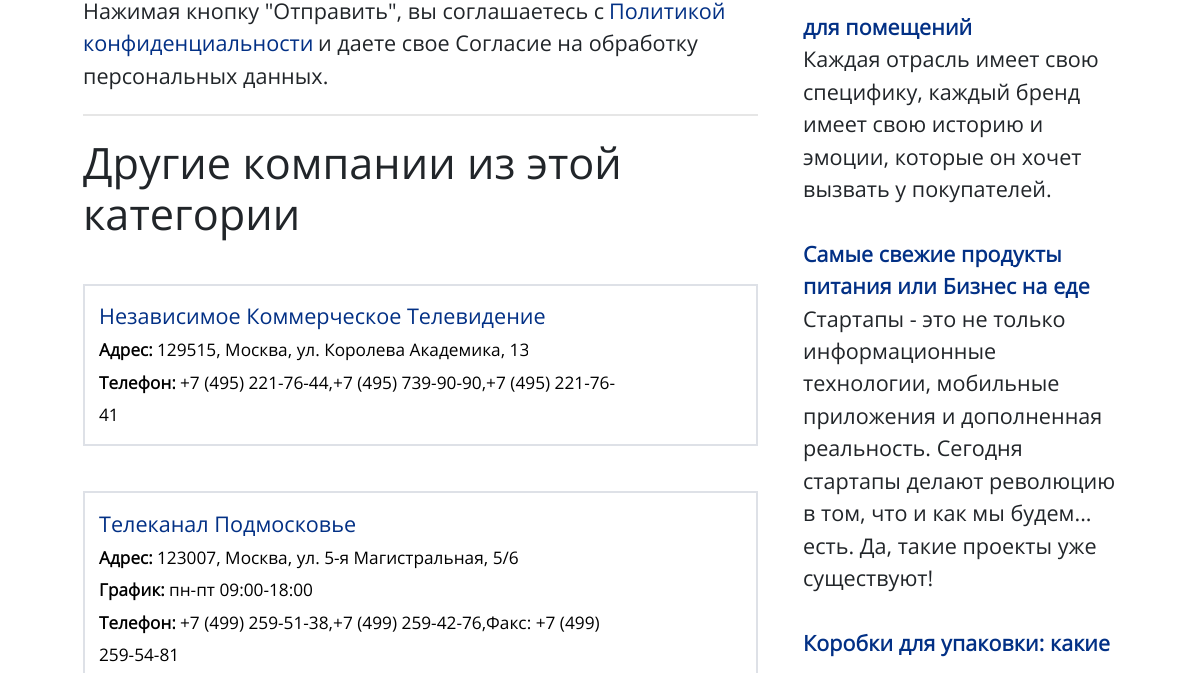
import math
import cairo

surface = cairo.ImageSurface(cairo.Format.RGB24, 1200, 673)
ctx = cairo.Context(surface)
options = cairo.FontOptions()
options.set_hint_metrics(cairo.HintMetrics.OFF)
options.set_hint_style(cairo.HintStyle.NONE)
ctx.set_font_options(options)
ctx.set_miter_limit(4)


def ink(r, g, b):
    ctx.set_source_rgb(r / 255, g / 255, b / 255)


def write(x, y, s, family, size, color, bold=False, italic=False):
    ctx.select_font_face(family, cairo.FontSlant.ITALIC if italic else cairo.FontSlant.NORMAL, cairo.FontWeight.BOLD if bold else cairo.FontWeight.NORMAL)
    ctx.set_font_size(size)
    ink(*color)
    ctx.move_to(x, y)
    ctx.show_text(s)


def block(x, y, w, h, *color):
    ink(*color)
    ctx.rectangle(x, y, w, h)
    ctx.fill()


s1 = dict(family="Open Sans", size=21.6, color=(33, 37, 41))
s2 = dict(family="Open Sans", size=21.6, color=(2, 48, 133))
s3 = dict(family="Open Sans", size=43.25, color=(33, 37, 41))
s4 = dict(family="Open Sans", size=17.25, color=(0, 0, 0), bold=True)
s5 = dict(family="Open Sans", size=17.25, color=(0, 0, 0))
s6 = dict(family="Open Sans", size=21.6, color=(2, 48, 133), bold=True)

ink(255, 255, 255)
ctx.paint()
write(83, 19, "Нажимая кнопку \"Отправить\", вы соглашаетесь с", **s1)
write(609, 19, "Политикой", **s2)
write(83, 51, "конфиденциальности", **s2)
write(318, 51, "и даете свое Согласие на обработку", **s1)
write(83, 84, "персональных данных.", **s1)
block(83, 114, 675, 2, 230, 230, 230)
write(83, 179, "Другие компании из этой", **s3)
write(83, 230, "категории", **s3)
ctx.rectangle(84, 285, 673, 160)
ink(222, 225, 231)
ctx.stroke()
write(99, 324, "Независимое Коммерческое Телевидение", **s2)
write(99, 356, "Адрес:", **s4)
write(157, 356, "129515, Москва, ул. Королева Академика, 13", **s5)
write(99, 389, "Телефон:", **s4)
write(180, 389, "+7 (495) 221-76-44,+7 (495) 739-90-90,+7 (495) 221-76-", **s5)
write(99, 421, "41", **s5)
ctx.rectangle(84, 492, 673, 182)
ink(222, 225, 231)
ctx.stroke()
write(99, 532, "Телеканал Подмосковье", **s2)
write(99, 564, "Адрес:", **s4)
write(157, 564, "123007, Москва, ул. 5-я Магистральная, 5/6", **s5)
write(99, 596, "График:", **s4)
write(169, 596, "пн-пт 09:00-18:00", **s5)
write(99, 629, "Телефон:", **s4)
write(180, 629, "+7 (499) 259-51-38,+7 (499) 259-42-76,Факс: +7 (499)", **s5)
write(99, 661, "259-54-81", **s5)
write(803, 35, "для помещений", **s6)
write(803, 67, "Каждая отрасль имеет свою", **s1)
write(803, 100, "специфику, каждый бренд", **s1)
write(803, 132, "имеет свою историю и", **s1)
write(803, 165, "эмоции, которые он хочет", **s1)
write(803, 197, "вызвать у покупателей.", **s1)
write(803, 262, "Самые свежие продукты", **s6)
write(803, 294, "питания или Бизнес на еде", **s6)
write(803, 327, "Стартапы - это не только", **s1)
write(803, 359, "информационные", **s1)
write(803, 391, "технологии, мобильные", **s1)
write(803, 424, "приложения и дополненная", **s1)
write(803, 456, "реальность. Сегодня", **s1)
write(803, 489, "стартапы делают революцию", **s1)
write(803, 521, "в том, что и как мы будем...", **s1)
write(803, 554, "есть. Да, такие проекты уже", **s1)
write(803, 586, "существуют!", **s1)
write(803, 651, "Коробки для упаковки: какие", **s6)
surface.write_to_png("screenshot.png")
